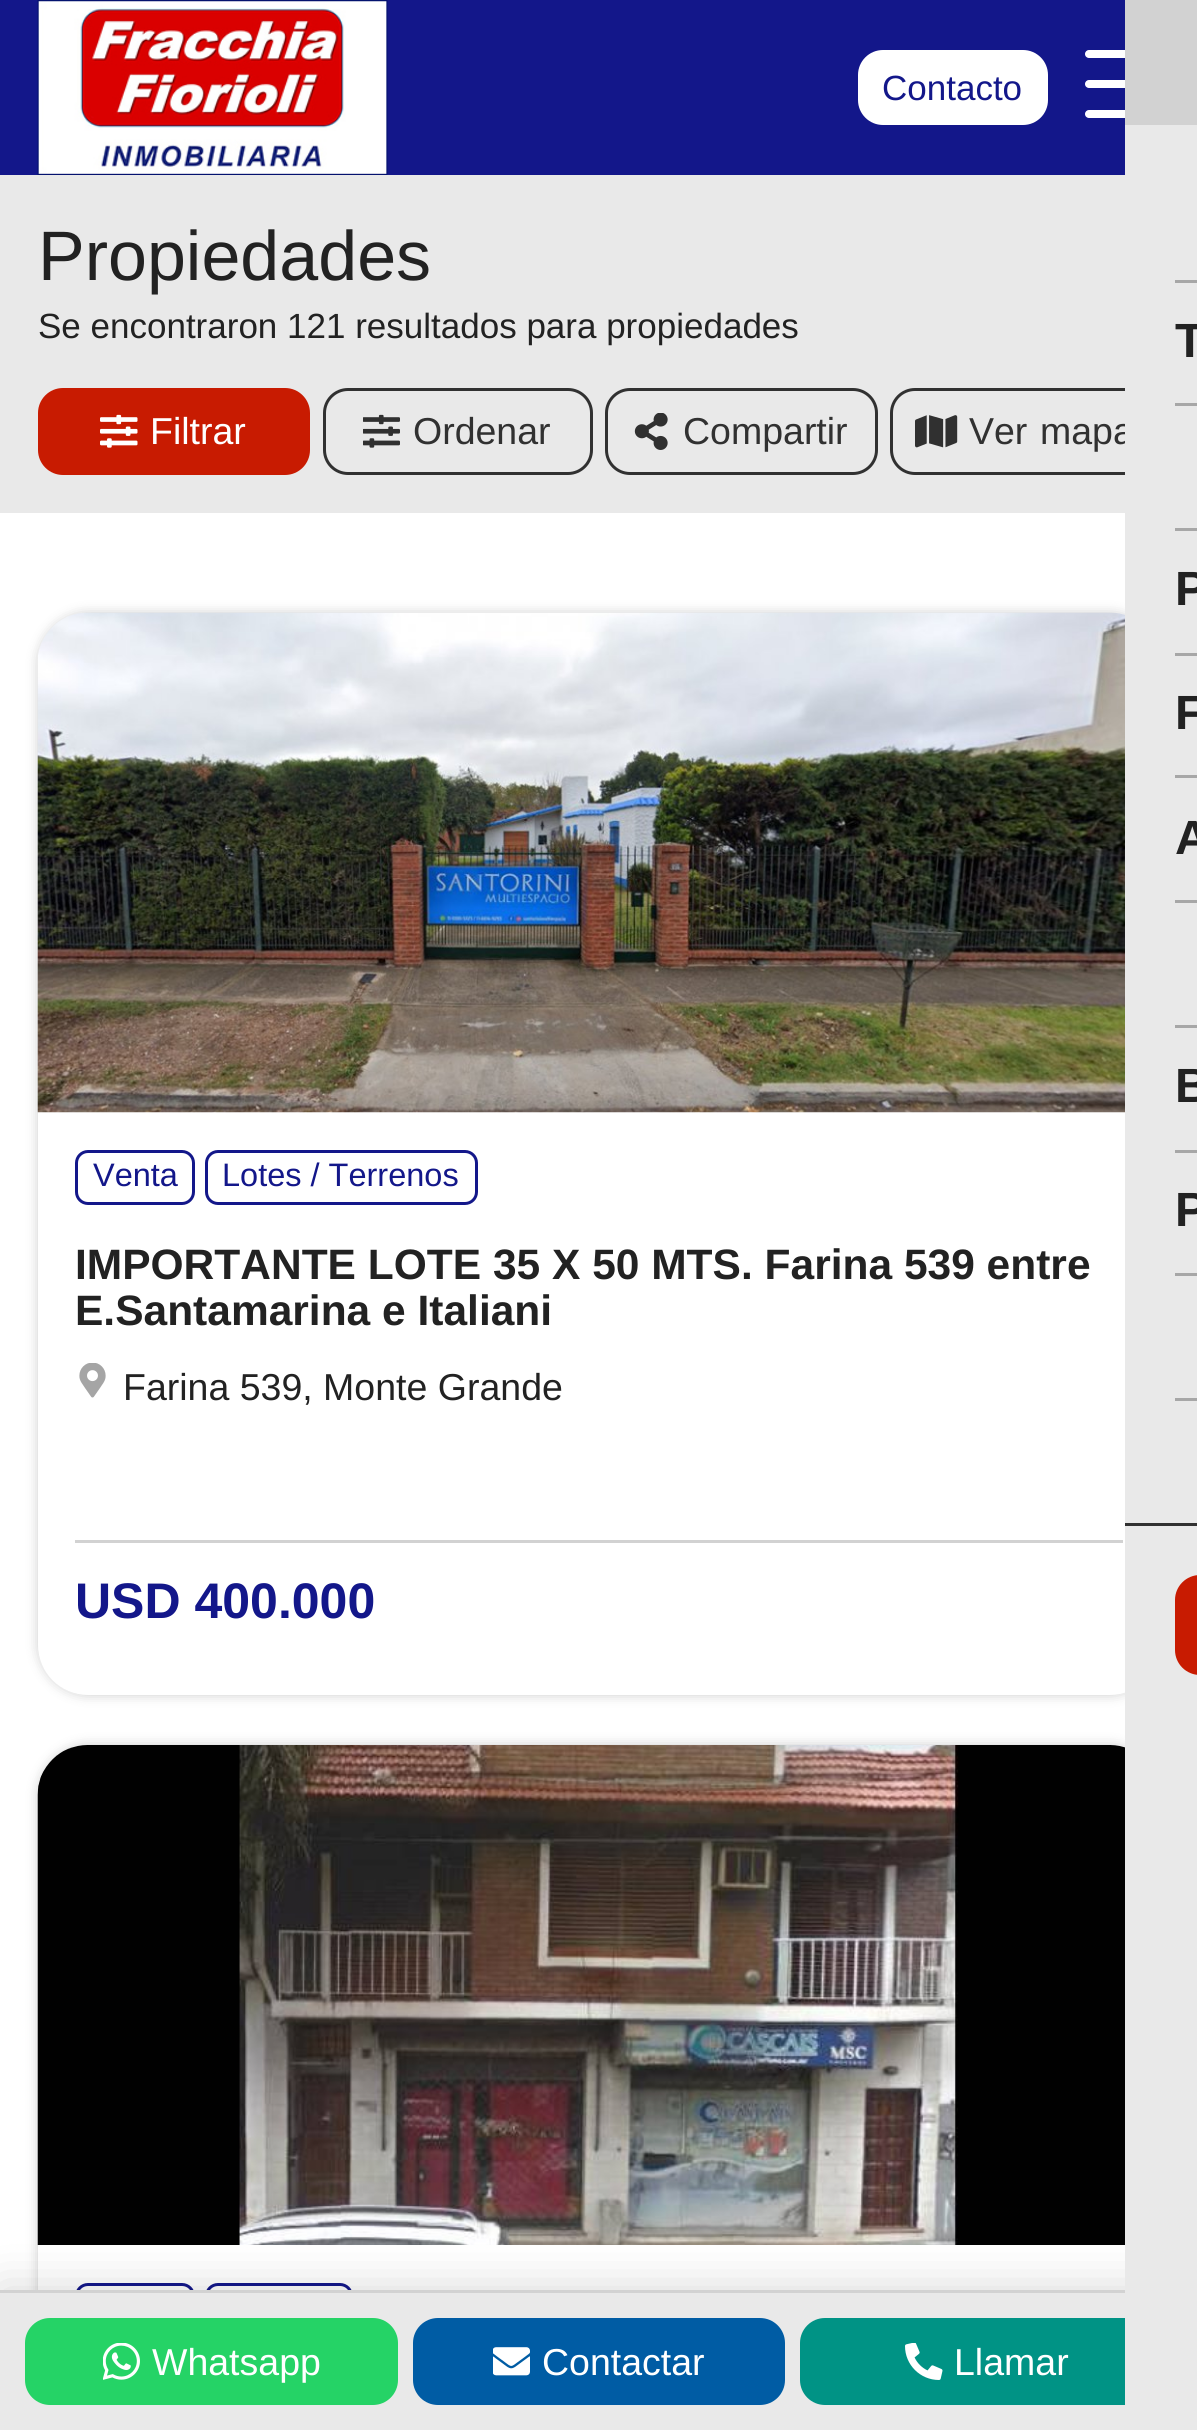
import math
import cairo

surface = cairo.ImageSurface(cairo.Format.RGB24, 1197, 2430)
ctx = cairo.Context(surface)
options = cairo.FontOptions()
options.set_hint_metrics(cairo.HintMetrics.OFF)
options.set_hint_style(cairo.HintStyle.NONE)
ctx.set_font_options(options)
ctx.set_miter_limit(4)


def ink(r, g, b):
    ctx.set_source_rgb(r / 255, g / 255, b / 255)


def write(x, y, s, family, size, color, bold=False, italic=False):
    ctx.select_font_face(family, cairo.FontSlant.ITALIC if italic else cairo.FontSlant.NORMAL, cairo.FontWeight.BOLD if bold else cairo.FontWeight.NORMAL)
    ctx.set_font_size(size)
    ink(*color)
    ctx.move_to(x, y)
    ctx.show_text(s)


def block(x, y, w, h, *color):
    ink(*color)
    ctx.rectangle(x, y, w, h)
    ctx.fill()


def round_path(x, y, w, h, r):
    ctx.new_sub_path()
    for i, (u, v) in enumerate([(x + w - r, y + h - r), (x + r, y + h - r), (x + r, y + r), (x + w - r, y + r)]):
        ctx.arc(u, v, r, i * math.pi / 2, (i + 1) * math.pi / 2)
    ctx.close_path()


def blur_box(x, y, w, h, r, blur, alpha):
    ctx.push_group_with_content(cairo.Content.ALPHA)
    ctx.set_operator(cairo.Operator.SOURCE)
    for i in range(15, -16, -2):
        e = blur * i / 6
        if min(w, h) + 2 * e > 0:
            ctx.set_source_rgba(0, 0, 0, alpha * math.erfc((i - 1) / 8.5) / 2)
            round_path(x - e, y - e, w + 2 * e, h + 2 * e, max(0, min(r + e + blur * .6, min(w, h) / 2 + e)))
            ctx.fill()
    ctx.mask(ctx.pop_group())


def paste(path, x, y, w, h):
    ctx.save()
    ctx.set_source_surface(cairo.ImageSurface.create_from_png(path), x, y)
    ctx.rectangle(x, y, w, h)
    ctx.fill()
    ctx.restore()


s1 = dict(family="Liberation Sans", size=35, color=(19, 23, 138))
s2 = dict(family="Liberation Sans", size=70, color=(34, 34, 34))
s3 = dict(family="Liberation Sans", size=35, color=(34, 34, 34))
s4 = dict(family="Liberation Sans", size=37.5, color=(255, 255, 255))
s5 = dict(family="Liberation Sans", size=37.5, color=(49, 49, 49))
s6 = dict(family="Liberation Sans", size=48, color=(34, 34, 34), bold=True)
s7 = dict(family="Liberation Sans", size=32.5, color=(19, 23, 138))
s8 = dict(family="Liberation Sans", size=42.5, color=(34, 34, 34), bold=True)
s9 = dict(family="Liberation Sans", size=37.5, color=(34, 34, 34))
s10 = dict(family="Liberation Sans", size=50, color=(19, 23, 138), bold=True)

ink(255, 255, 255)
ctx.paint()
block(0, 0, 1125, 175, 19, 23, 138)
paste("pic1.png", 37, 0, 351, 175)
ink(255, 255, 255)
round_path(858, 50, 190, 75, 25)
ctx.fill()
write(882, 100, "Contacto", **s1)
ink(255, 255, 255)
round_path(1085, 50, 75, 8, 4)
ctx.fill()
round_path(1085, 80, 75, 8, 4)
ctx.fill()
round_path(1085, 110, 75, 8, 4)
ctx.fill()
block(0, 175, 1125, 338, 233, 233, 233)
write(38, 280, "Propiedades", **s2)
write(38, 338, "Se encontraron 121 resultados para propiedades", **s3)
ink(200, 27, 1)
round_path(38, 388, 272, 87, 25)
ctx.fill()
paste("pic2.png", 100, 414, 38, 34)
write(150, 444, "Filtrar", **s4)
round_path(324.5, 389.5, 267, 84, 23.5)
ink(49, 49, 49)
ctx.set_line_width(3)
ctx.stroke()
paste("pic3.png", 363, 414, 37, 34)
write(413, 444, "Ordenar", **s5)
round_path(606.5, 389.5, 270, 84, 23.5)
ctx.stroke()
paste("pic4.png", 634, 413, 34, 37)
write(683, 444, "Compartir", **s5)
round_path(891.5, 389.5, 267, 84, 23.5)
ctx.stroke()
paste("pic5.png", 915, 415, 43, 33)
write(969, 444, "Ver", **s5)
write(1040, 444, "mapa", **s5)
ink(0, 0, 0)
blur_box(38, 613, 1122, 1082, 50, 6, 0.2)
ink(255, 255, 255)
round_path(38, 613, 1122, 1082, 50)
ctx.fill()
ink(0, 0, 0)
blur_box(38, 1745, 1122, 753, 50, 6, 0.2)
ink(255, 255, 255)
round_path(38, 1745, 1122, 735, 50)
ctx.fill()
paste("pic8.png", 37, 1745, 1088, 500)
round_path(76.5, 2284.5, 117, 54, 11.5)
ink(19, 23, 138)
ctx.stroke()
round_path(206.5, 2284.5, 145, 54, 11.5)
ctx.stroke()
ink(0, 0, 0)
blur_box(0, 2290, 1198, 140, 0, 25, 0.16)
block(0, 2293, 1125, 137, 233, 233, 233)
ink(0, 147, 133)
round_path(800, 2318, 373, 87, 25)
ctx.fill()
block(1125, 125, 72, 2305, 233, 233, 233)
block(1125, 0, 72, 125, 210, 210, 210)
block(1175, 280, 22, 3, 167, 167, 167)
block(1175, 403, 22, 3, 167, 167, 167)
write(1175, 357, "T", **s6)
block(1175, 528, 22, 3, 167, 167, 167)
block(1175, 653, 22, 3, 167, 167, 167)
write(1175, 605, "P", **s6)
block(1175, 775, 22, 3, 167, 167, 167)
write(1175, 729, "F", **s6)
block(1175, 900, 22, 3, 167, 167, 167)
write(1175, 854, "A", **s6)
block(1175, 1025, 22, 3, 167, 167, 167)
block(1175, 1150, 22, 3, 167, 167, 167)
write(1175, 1102, "B", **s6)
block(1175, 1273, 22, 3, 167, 167, 167)
write(1175, 1226, "P", **s6)
block(1175, 1398, 22, 3, 167, 167, 167)
block(1125, 1523, 72, 3, 49, 49, 49)
ink(200, 27, 1)
round_path(1175, 1575, 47, 100, 25)
ctx.fill()
paste("pic6.png", 37, 612, 1088, 501)
round_path(76.5, 1151.5, 117, 52, 11.5)
ink(19, 23, 138)
ctx.stroke()
write(93, 1186, "Venta", **s7)
round_path(206.5, 1151.5, 270, 52, 11.5)
ctx.stroke()
write(222, 1186, "Lotes / Terrenos", **s7)
write(75, 1279, "IMPORTANTE LOTE 35 X 50 MTS. Farina 539 entre", **s8)
write(75, 1325, "E.Santamarina e Italiani", **s8)
paste("pic7.png", 79, 1363, 27, 35)
write(123, 1400, "Farina 539, Monte Grande", **s9)
block(75, 1540, 1048, 3, 210, 210, 210)
write(75, 1618, "USD 400.000", **s10)
block(0, 2290, 1125, 3, 210, 210, 210)
ink(37, 211, 102)
round_path(25, 2318, 373, 87, 25)
ctx.fill()
paste("pic9.png", 103, 2343, 37, 37)
write(152, 2375, "Whatsapp", **s4)
ink(0, 92, 164)
round_path(413, 2318, 372, 87, 25)
ctx.fill()
paste("pic10.png", 493, 2347, 37, 29)
write(542, 2375, "Contactar", **s4)
paste("pic11.png", 905, 2343, 38, 37)
write(954, 2375, "Llamar", **s4)
surface.write_to_png("screenshot.png")
